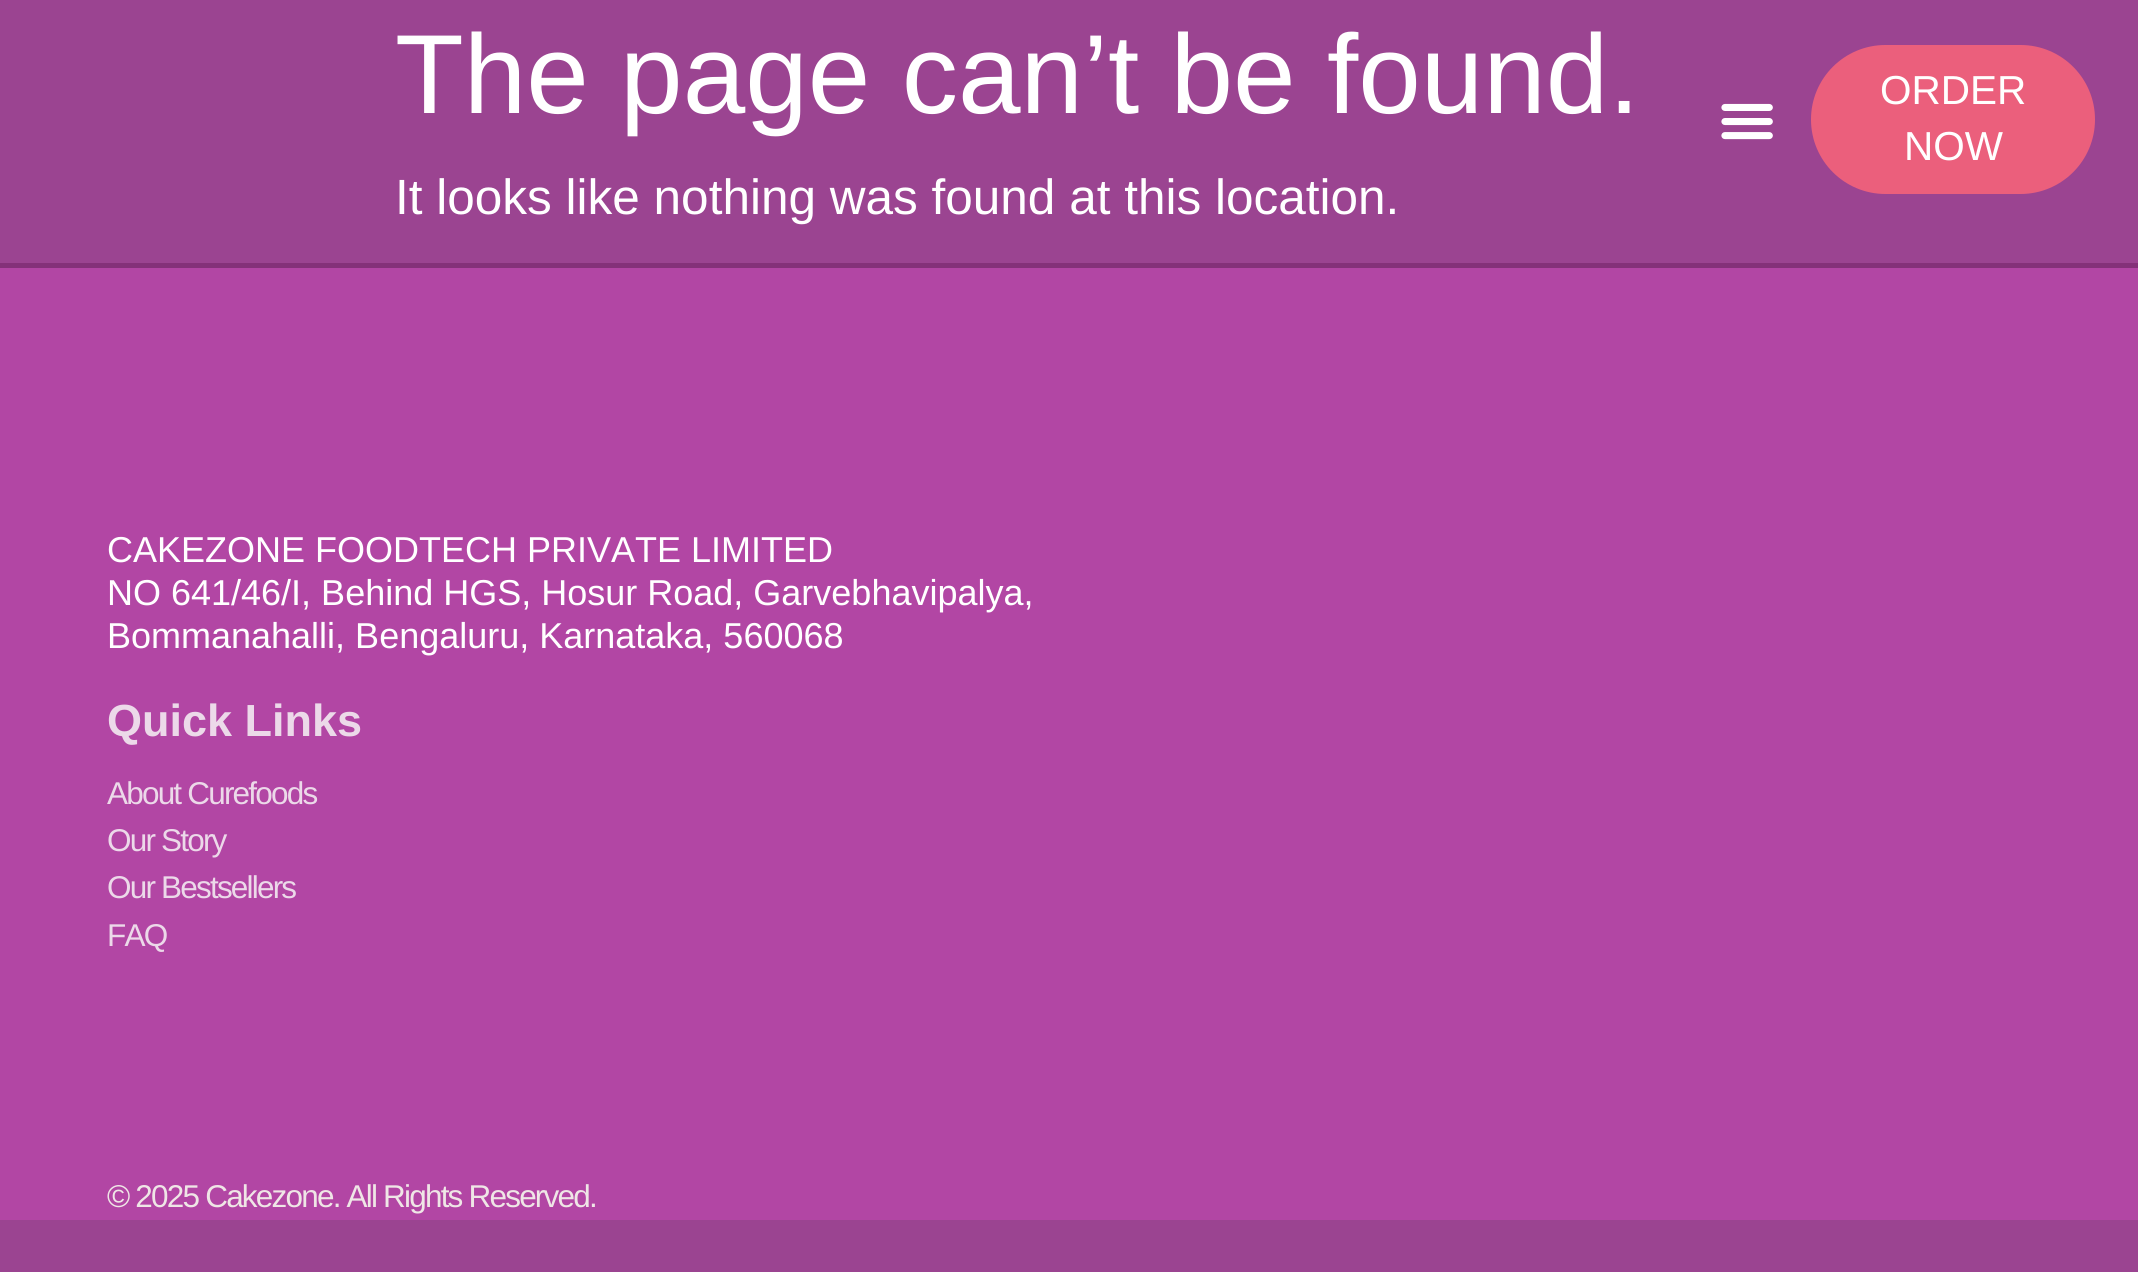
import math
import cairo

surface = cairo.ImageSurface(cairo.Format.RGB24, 2138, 1272)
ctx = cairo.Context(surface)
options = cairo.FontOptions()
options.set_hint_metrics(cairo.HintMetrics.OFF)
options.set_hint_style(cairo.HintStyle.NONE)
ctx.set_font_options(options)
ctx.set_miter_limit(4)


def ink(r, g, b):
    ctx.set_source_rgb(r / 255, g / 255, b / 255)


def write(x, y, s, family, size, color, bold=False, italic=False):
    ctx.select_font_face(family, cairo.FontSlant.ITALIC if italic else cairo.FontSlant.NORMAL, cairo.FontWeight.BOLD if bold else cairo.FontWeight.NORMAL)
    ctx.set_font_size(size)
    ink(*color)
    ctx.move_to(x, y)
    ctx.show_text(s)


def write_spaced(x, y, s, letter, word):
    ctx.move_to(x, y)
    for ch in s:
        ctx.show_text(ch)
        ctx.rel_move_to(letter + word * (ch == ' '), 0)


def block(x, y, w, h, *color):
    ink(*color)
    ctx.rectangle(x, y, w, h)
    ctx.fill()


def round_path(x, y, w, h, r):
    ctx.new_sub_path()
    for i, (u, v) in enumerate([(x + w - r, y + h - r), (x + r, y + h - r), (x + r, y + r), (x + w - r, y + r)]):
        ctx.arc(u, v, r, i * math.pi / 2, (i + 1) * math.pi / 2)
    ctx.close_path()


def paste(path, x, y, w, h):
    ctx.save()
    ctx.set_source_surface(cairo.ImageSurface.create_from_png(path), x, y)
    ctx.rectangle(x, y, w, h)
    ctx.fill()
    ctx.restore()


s1 = dict(family="Liberation Sans", size=112.5, color=(255, 255, 255))
s2 = dict(family="Liberation Sans", size=49.5, color=(255, 255, 255))
s3 = dict(family="Liberation Sans", size=40.5, color=(255, 255, 255))
s4 = dict(family="Liberation Sans", size=36, color=(255, 255, 255))
s5 = dict(family="Liberation Sans", size=45, color=(236, 217, 233), bold=True)

ink(155, 68, 145)
ctx.paint()
write(395, 113, "The page can’t be found.", **s1)
write(395, 214, "It looks like nothing was found at this location.", **s2)
paste("pic1.png", 1721, 103, 52, 37)
ink(235, 95, 124)
round_path(1811, 45, 284, 149, 74.5)
ctx.fill()
write(1880, 104, "ORDER", **s3)
write(1904, 160, "NOW", **s3)
block(0, 268, 2138, 952, 178, 70, 164)
block(0, 263, 2138, 5, 132, 49, 121)
write(107, 562, "CAKEZONE FOODTECH PRIVATE LIMITED", **s4)
write(107, 605, "NO 641/46/I, Behind HGS, Hosur Road, Garvebhavipalya,", **s4)
write(107, 648, "Bommanahalli, Bengaluru, Karnataka, 560068", **s4)
write(107, 736, "Quick Links", **s5)
ctx.select_font_face("Liberation Sans")
ctx.set_font_size(31.5)
write_spaced(107, 804, "About Curefoods", -1.8, 0)
write_spaced(107, 851, "Our Story", -1.8, 0)
write_spaced(107, 898, "Our Bestsellers", -1.8, 0)
write_spaced(107, 946, "FAQ", -1.8, 0)
ink(239, 230, 230)
write_spaced(107, 1207, "© 2025 Cakezone. All Rights Reserved.", -1.8, 0)
surface.write_to_png("screenshot.png")
